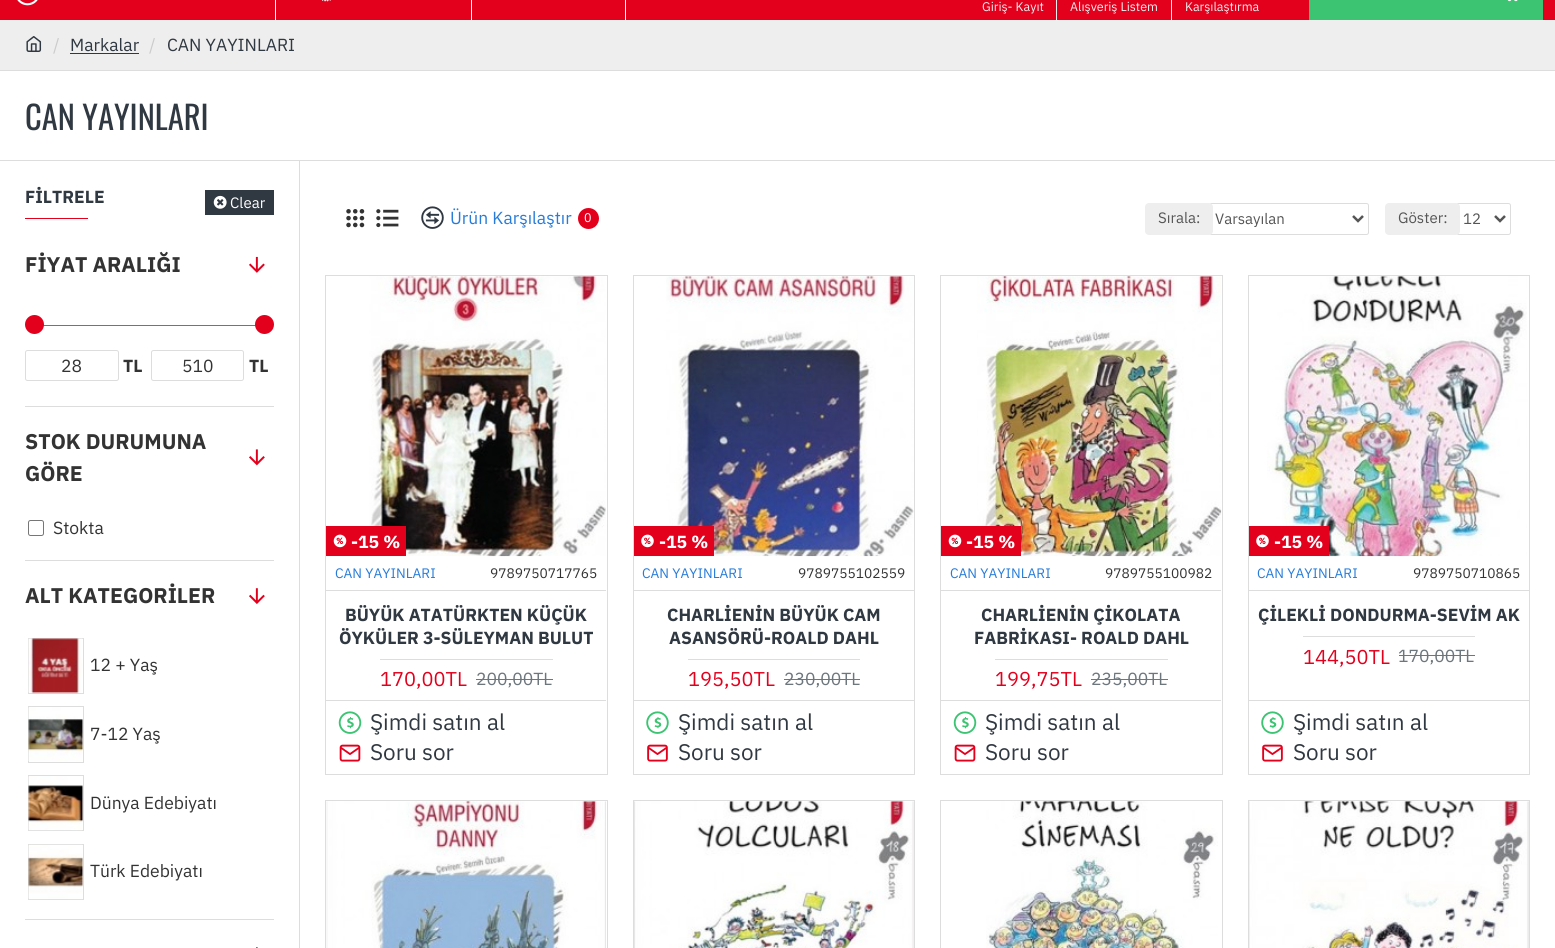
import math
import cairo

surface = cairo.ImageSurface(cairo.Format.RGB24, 1555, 948)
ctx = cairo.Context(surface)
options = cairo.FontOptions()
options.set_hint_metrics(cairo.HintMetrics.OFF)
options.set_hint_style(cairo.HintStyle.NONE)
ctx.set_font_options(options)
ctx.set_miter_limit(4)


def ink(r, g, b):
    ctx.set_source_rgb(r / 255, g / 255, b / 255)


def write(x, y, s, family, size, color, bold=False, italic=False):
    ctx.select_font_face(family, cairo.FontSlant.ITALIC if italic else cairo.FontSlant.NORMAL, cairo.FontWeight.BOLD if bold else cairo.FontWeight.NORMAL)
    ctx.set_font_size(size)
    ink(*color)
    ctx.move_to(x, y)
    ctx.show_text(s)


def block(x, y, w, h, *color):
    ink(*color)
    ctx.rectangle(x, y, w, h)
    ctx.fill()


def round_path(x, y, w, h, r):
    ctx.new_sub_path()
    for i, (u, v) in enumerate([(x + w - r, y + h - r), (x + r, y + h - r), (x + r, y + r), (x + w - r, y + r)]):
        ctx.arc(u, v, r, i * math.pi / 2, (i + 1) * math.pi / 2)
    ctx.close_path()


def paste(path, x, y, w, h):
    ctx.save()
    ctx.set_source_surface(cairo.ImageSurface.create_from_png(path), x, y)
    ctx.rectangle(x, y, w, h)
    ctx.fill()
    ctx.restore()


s1 = dict(family="IBM Plex Sans", size=12.5, color=(238, 238, 238))
s2 = dict(family="IBM Plex Sans", size=17.5, color=(204, 204, 204))
s3 = dict(family="IBM Plex Sans", size=17.5, color=(48, 56, 65))
s4 = dict(family="Oswald", size=32.5, color=(48, 56, 65))
s5 = dict(family="IBM Plex Sans", size=17.5, color=(48, 56, 65), bold=True)
s6 = dict(family="IBM Plex Sans", size=15, color=(255, 255, 255))
s7 = dict(family="IBM Plex Sans", size=21.25, color=(51, 51, 51), bold=True)
s8 = dict(family="IBM Plex Sans", size=17.5, color=(51, 51, 51))
s9 = dict(family="IBM Plex Sans", size=17.5, color=(51, 51, 51), bold=True)
s10 = dict(family="IBM Plex Sans", size=17.5, color=(39, 124, 217))
s11 = dict(family="IBM Plex Sans", size=12.5, color=(255, 255, 255))
s12 = dict(family="IBM Plex Sans", size=15, color=(85, 85, 85))
s13 = dict(family="IBM Plex Sans", size=17.5, color=(255, 255, 255), bold=True)
s14 = dict(family="IBM Plex Sans", size=13.75, color=(39, 124, 217))
s15 = dict(family="IBM Plex Sans", size=13.75, color=(51, 51, 51))
s16 = dict(family="IBM Plex Sans", size=20, color=(227, 0, 29))
s17 = dict(family="IBM Plex Sans", size=17.5, color=(109, 118, 125))
s18 = dict(family="IBM Plex Sans", size=22.5, color=(48, 56, 65))

ink(255, 255, 255)
ctx.paint()
block(0, 0, 1555, 20, 227, 0, 29)
paste("pic1.png", 17, 0, 21, 6)
block(275, 0, 1, 20, 255, 255, 255)
paste("pic2.png", 322, 0, 9, 2)
block(471, 0, 1, 20, 255, 255, 255)
block(625, 0, 1, 20, 255, 255, 255)
write(982, 11, "Giriş- Kayıt", **s1)
block(1056, 0, 1, 20, 238, 238, 238)
write(1070, 11, "Alışveriş Listem", **s1)
block(1171, 0, 1, 20, 238, 238, 238)
write(1185, 11, "Karşılaştırma", **s1)
block(1309, 0, 234, 20, 60, 196, 114)
paste("pic3.png", 1507, 0, 11, 2)
block(0, 20, 1555, 50, 238, 238, 238)
block(0, 70, 1555, 1, 221, 221, 221)
paste("pic4.png", 26, 36, 16, 16)
write(53, 51, "/", **s2)
write(70, 51, "Markalar", **s3)
block(70, 53, 69, 1, 48, 56, 65)
write(149, 51, "/", **s2)
write(167, 51, "CAN YAYINLARI", **s3)
block(0, 160, 1555, 1, 221, 221, 221)
write(25, 130, "CAN YAYINLARI", **s4)
block(299, 161, 1, 787, 221, 221, 221)
write(25, 203, "FİLTRELE", **s5)
block(205, 190, 69, 25, 48, 56, 65)
paste("pic5.png", 213, 195, 14, 14)
write(230, 208, "Clear", **s6)
block(25, 218, 63, 1, 227, 0, 29)
write(25, 272, "FİYAT ARALIĞI", **s7)
paste("pic6.png", 249, 256, 16, 17)
ink(109, 118, 125)
ctx.new_path()
ctx.move_to(41, 325)
ctx.line_to(259, 325)
ctx.line_to(263, 325)
ctx.line_to(265, 326)
ctx.line_to(259, 326)
ctx.line_to(41, 326)
ctx.line_to(35, 326)
ctx.line_to(37, 325)
ctx.close_path()
ctx.fill()
ink(227, 0, 29)
ctx.arc(34.5, 324.5, 9.5, 0, 2 * math.pi)
ctx.fill()
ctx.arc(264.5, 324.5, 9.5, 0, 2 * math.pi)
ctx.fill()
round_path(25.5, 350.5, 93, 30, 2)
ink(221, 221, 221)
ctx.set_line_width(1)
ctx.stroke()
write(61, 372, "28", **s8)
write(123, 372, "TL", **s9)
round_path(151.5, 350.5, 92, 30, 2)
ink(221, 221, 221)
ctx.stroke()
write(182, 372, "510", **s8)
write(249, 372, "TL", **s9)
block(25, 406, 249, 1, 221, 221, 221)
write(25, 449, "STOK DURUMUNA", **s7)
paste("pic7.png", 249, 449, 16, 17)
write(25, 481, "GÖRE", **s7)
round_path(28.5, 520.5, 15, 15, 2)
ink(118, 118, 118)
ctx.stroke()
write(53, 534, "Stokta", **s8)
block(25, 560, 249, 1, 221, 221, 221)
write(25, 603, "ALT KATEGORİLER", **s7)
paste("pic8.png", 249, 588, 16, 16)
ctx.rectangle(28.5, 638.5, 55, 55)
ink(221, 221, 221)
ctx.stroke()
paste("pic9.png", 28, 638, 55, 56)
write(90, 671, "12 + Yaş", **s8)
ctx.rectangle(28.5, 706.5, 55, 56)
ink(221, 221, 221)
ctx.stroke()
paste("pic10.png", 28, 707, 55, 54)
write(90, 740, "7-12 Yaş", **s8)
ctx.rectangle(28.5, 775.5, 55, 55)
ink(221, 221, 221)
ctx.stroke()
paste("pic11.png", 28, 776, 55, 55)
write(90, 809, "Dünya Edebiyatı", **s8)
ctx.rectangle(28.5, 844.5, 55, 55)
ink(221, 221, 221)
ctx.stroke()
paste("pic12.png", 28, 844, 55, 56)
write(90, 877, "Türk Edebiyatı", **s8)
block(25, 919, 249, 1, 221, 221, 221)
paste("pic13.png", 256, 947, 2, 1)
paste("pic14.png", 346, 209, 19, 19)
paste("pic15.png", 376, 209, 23, 19)
paste("pic16.png", 421, 206, 23, 23)
write(450, 224, "Ürün Karşılaştır", **s10)
ink(227, 0, 29)
ctx.new_path()
ctx.arc(588.5, 218.5, 10.5, 0, 2 * math.pi)
ctx.fill()
write(584, 222, "0", **s11)
round_path(1209.5, 203.5, 159, 31, 2)
ink(221, 221, 221)
ctx.stroke()
ink(238, 238, 238)
round_path(1145, 203, 68, 32, 4)
ctx.fill()
write(1158, 223, "Sırala:", **s12)
ctx.new_path()
ctx.move_to(1353, 216)
ctx.line_to(1358, 221)
ctx.line_to(1363, 216)
ctx.set_line_width(2.5)
ctx.stroke()
write(1215, 224, "Varsayılan", **s12)
round_path(1456.5, 203.5, 54, 31, 2)
ink(221, 221, 221)
ctx.set_line_width(1)
ctx.stroke()
ink(238, 238, 238)
round_path(1385, 203, 75, 32, 4)
ctx.fill()
write(1398, 223, "Göster:", **s12)
ctx.new_path()
ctx.move_to(1495, 216)
ctx.line_to(1500, 221)
ctx.line_to(1505, 216)
ctx.set_line_width(2.5)
ctx.stroke()
write(1463, 224, "12", **s12)
ctx.rectangle(325.5, 275.5, 282, 499)
ink(221, 221, 221)
ctx.set_line_width(1)
ctx.stroke()
paste("pic17.png", 369, 276, 237, 281)
block(326, 526, 80, 30, 227, 0, 29)
paste("pic18.png", 333, 534, 14, 14)
write(351, 548, "-15 %", **s13)
block(326, 590, 280, 1, 221, 221, 221)
write(335, 578, "CAN YAYINLARI", **s14)
write(490, 578, "9789750717765", **s15)
write(345, 621, "BÜYÜK ATATÜRKTEN KÜÇÜK", **s5)
write(339, 644, "ÖYKÜLER 3-SÜLEYMAN BULUT", **s5)
block(380, 659, 173, 1, 221, 221, 221)
write(380, 686, "170,00TL", **s16)
write(476, 685, "200,00TL", **s17)
block(476, 679, 77, 1, 109, 118, 125)
block(326, 700, 280, 1, 221, 221, 221)
paste("pic19.png", 338, 711, 24, 23)
write(370, 730, "Şimdi satın al", **s18)
paste("pic20.png", 339, 744, 22, 18)
write(370, 760, "Soru sor", **s18)
ctx.rectangle(633.5, 275.5, 281, 499)
ink(221, 221, 221)
ctx.stroke()
paste("pic21.png", 666, 276, 248, 281)
block(634, 526, 80, 30, 227, 0, 29)
paste("pic22.png", 641, 534, 13, 14)
write(659, 548, "-15 %", **s13)
block(634, 590, 280, 1, 221, 221, 221)
write(642, 578, "CAN YAYINLARI", **s14)
write(798, 578, "9789755102559", **s15)
write(667, 621, "CHARLİENİN BÜYÜK CAM", **s5)
write(669, 644, "ASANSÖRÜ-ROALD DAHL", **s5)
block(688, 659, 172, 1, 221, 221, 221)
write(688, 686, "195,50TL", **s16)
write(784, 685, "230,00TL", **s17)
block(784, 679, 76, 1, 109, 118, 125)
block(634, 700, 280, 1, 221, 221, 221)
paste("pic23.png", 646, 711, 23, 23)
write(678, 730, "Şimdi satın al", **s18)
paste("pic24.png", 647, 744, 21, 18)
write(678, 760, "Soru sor", **s18)
ctx.rectangle(940.5, 275.5, 282, 499)
ink(221, 221, 221)
ctx.stroke()
paste("pic25.png", 977, 276, 245, 281)
block(941, 526, 80, 30, 227, 0, 29)
paste("pic18.png", 948, 534, 14, 14)
write(966, 548, "-15 %", **s13)
block(941, 590, 280, 1, 221, 221, 221)
write(950, 578, "CAN YAYINLARI", **s14)
write(1105, 578, "9789755100982", **s15)
write(981, 621, "CHARLİENİN ÇİKOLATA", **s5)
write(974, 644, "FABRİKASI- ROALD DAHL", **s5)
block(995, 659, 173, 1, 221, 221, 221)
write(995, 686, "199,75TL", **s16)
write(1091, 685, "235,00TL", **s17)
block(1091, 679, 77, 1, 109, 118, 125)
block(941, 700, 280, 1, 221, 221, 221)
paste("pic19.png", 953, 711, 24, 23)
write(985, 730, "Şimdi satın al", **s18)
paste("pic20.png", 954, 744, 22, 18)
write(985, 760, "Soru sor", **s18)
ctx.rectangle(1248.5, 275.5, 281, 499)
ink(221, 221, 221)
ctx.stroke()
paste("pic26.png", 1267, 276, 260, 281)
block(1249, 526, 80, 30, 227, 0, 29)
paste("pic22.png", 1256, 534, 13, 14)
write(1274, 548, "-15 %", **s13)
block(1249, 590, 280, 1, 221, 221, 221)
write(1257, 578, "CAN YAYINLARI", **s14)
write(1413, 578, "9789750710865", **s15)
write(1258, 621, "ÇİLEKLİ DONDURMA-SEVİM AK", **s5)
block(1303, 636, 172, 1, 221, 221, 221)
write(1303, 664, "144,50TL", **s16)
write(1398, 662, "170,00TL", **s17)
block(1399, 655, 76, 1, 109, 118, 125)
block(1249, 700, 280, 1, 221, 221, 221)
paste("pic23.png", 1261, 711, 23, 23)
write(1293, 730, "Şimdi satın al", **s18)
paste("pic24.png", 1262, 744, 21, 18)
write(1293, 760, "Soru sor", **s18)
ctx.rectangle(325.5, 800.5, 282, 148)
ink(221, 221, 221)
ctx.stroke()
paste("pic27.png", 326, 801, 280, 147)
ctx.rectangle(633.5, 800.5, 281, 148)
ctx.stroke()
paste("pic28.png", 634, 801, 280, 147)
ctx.rectangle(940.5, 800.5, 282, 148)
ctx.stroke()
paste("pic29.png", 986, 801, 232, 147)
ctx.rectangle(1248.5, 800.5, 281, 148)
ctx.stroke()
paste("pic30.png", 1249, 801, 280, 147)
surface.write_to_png("screenshot.png")
